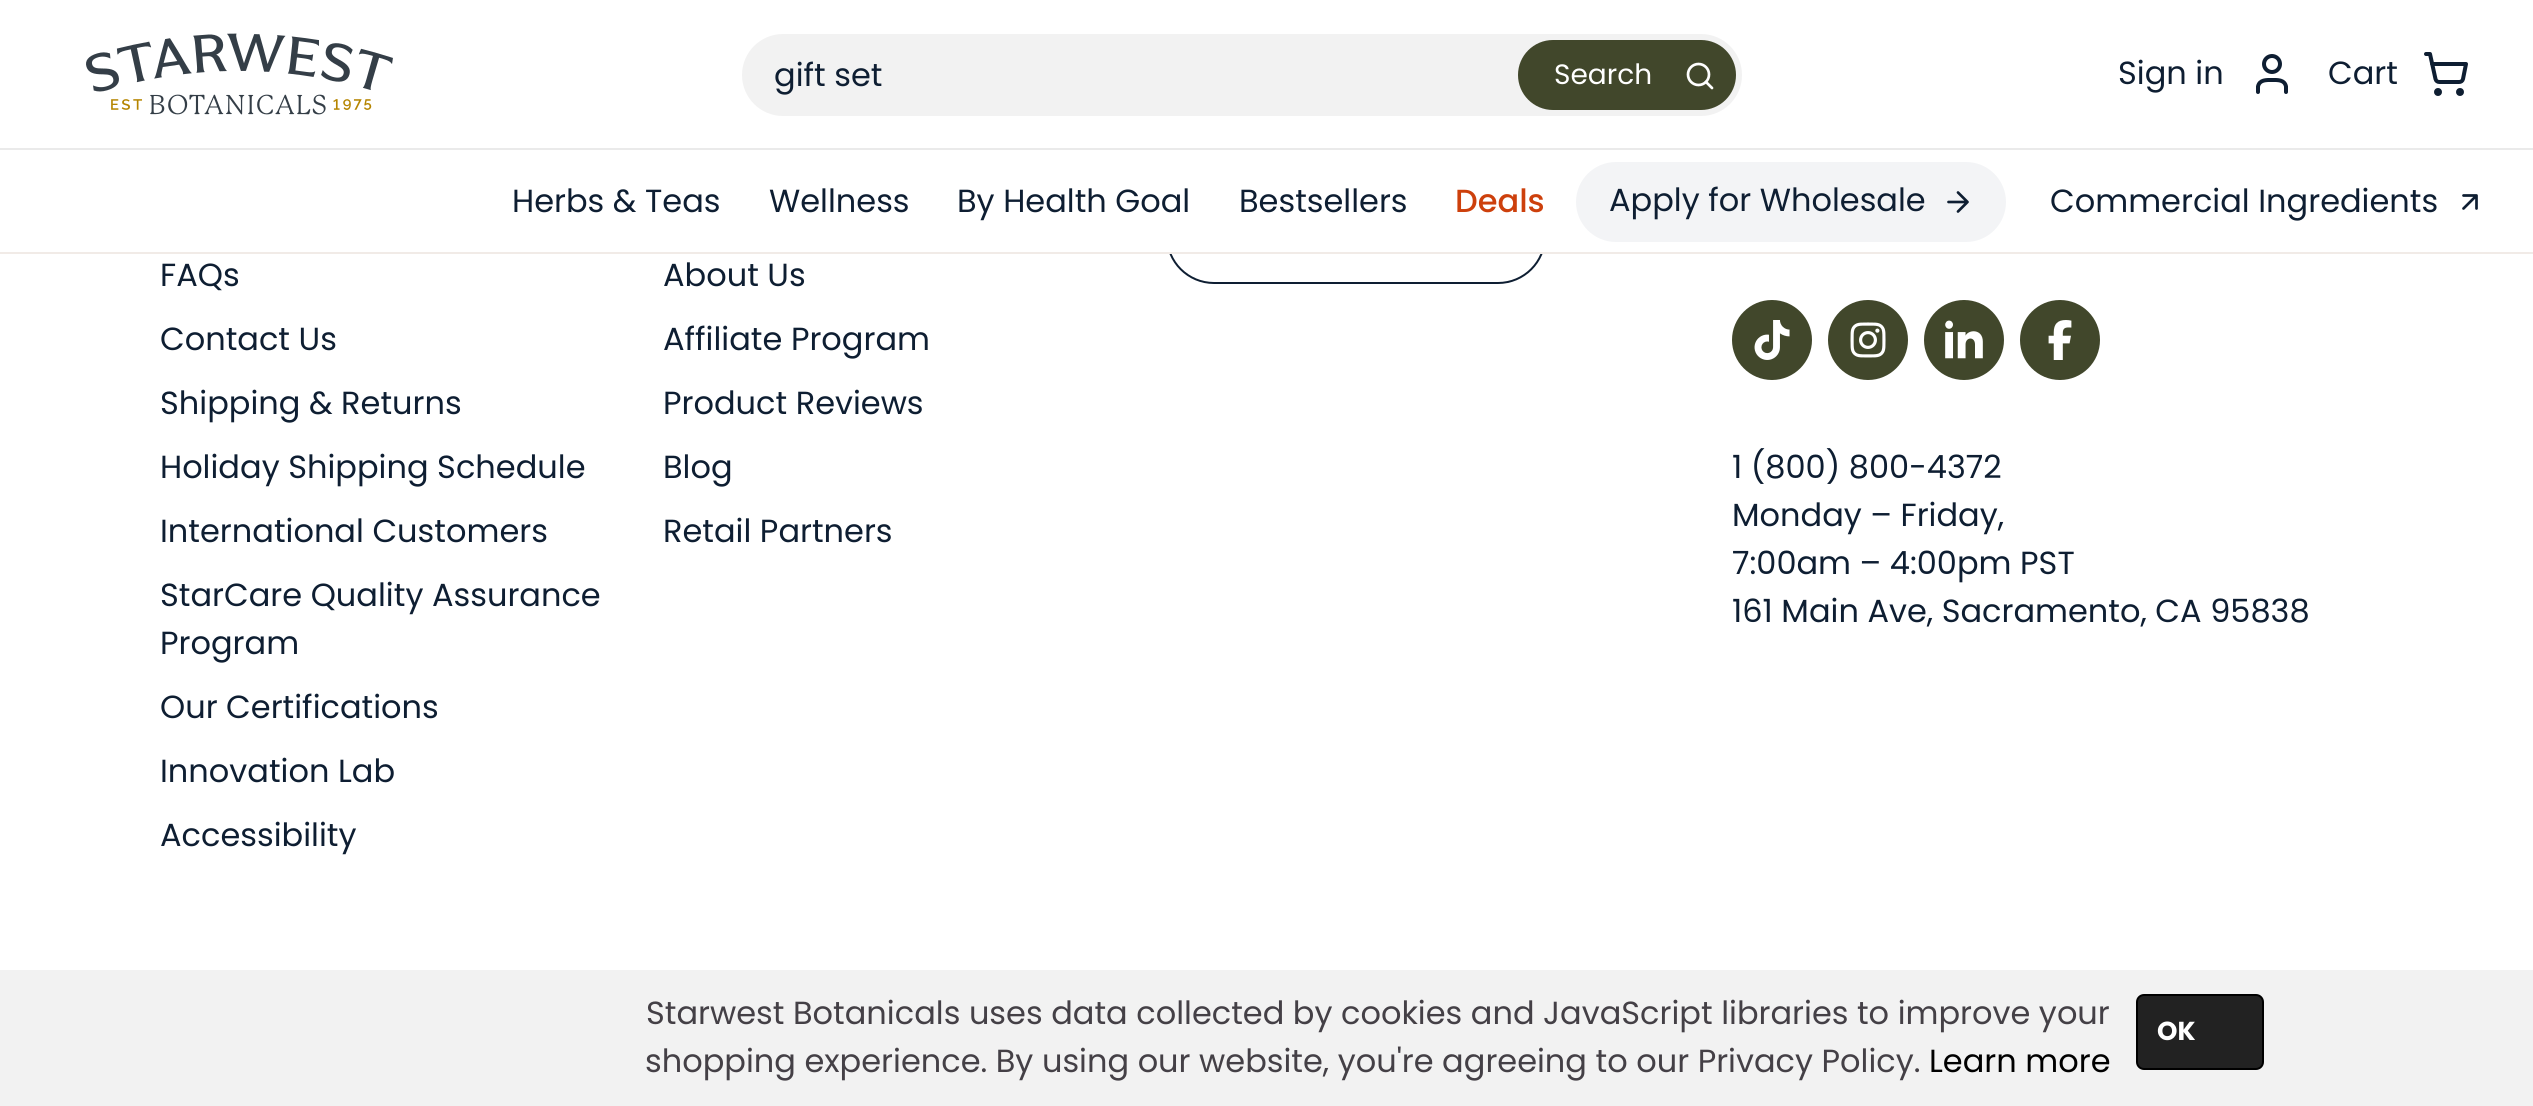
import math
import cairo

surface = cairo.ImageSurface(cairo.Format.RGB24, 2533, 1106)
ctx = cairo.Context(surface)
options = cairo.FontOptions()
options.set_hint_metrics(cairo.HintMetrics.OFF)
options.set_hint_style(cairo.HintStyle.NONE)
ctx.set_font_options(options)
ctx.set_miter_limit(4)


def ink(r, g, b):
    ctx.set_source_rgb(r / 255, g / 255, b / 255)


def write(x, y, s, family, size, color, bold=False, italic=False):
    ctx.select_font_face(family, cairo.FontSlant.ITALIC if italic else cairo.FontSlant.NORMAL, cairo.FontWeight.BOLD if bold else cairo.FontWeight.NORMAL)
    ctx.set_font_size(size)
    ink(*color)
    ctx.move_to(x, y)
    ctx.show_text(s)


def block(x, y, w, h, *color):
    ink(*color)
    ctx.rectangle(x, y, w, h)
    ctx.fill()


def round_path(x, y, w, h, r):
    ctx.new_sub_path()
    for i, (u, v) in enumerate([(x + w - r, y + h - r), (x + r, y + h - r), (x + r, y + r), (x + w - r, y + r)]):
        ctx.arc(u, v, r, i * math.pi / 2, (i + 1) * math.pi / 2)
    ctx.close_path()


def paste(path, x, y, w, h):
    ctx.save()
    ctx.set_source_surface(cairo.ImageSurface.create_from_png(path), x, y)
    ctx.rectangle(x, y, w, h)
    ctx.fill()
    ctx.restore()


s1 = dict(family="Poppins", size=32, color=(14, 30, 50))
s2 = dict(family="Poppins", size=28, color=(255, 255, 255))
s3 = dict(family="Poppins Medium", size=32, color=(205, 64, 12))
s4 = dict(family="Poppins", size=32, color=(68, 64, 70))
s5 = dict(family="Poppins", size=32, color=(0, 0, 0))
s6 = dict(family="Poppins", size=26, color=(255, 255, 255), bold=True)

ink(255, 255, 255)
ctx.paint()
round_path(1167, 189, 378, 94, 47)
ink(14, 30, 50)
ctx.stroke()
block(1166, 188, 380, 64, 255, 255, 255)
block(0, 252, 2533, 2, 241, 235, 231)
paste("pic1.png", 86, 33, 307, 82)
ink(242, 242, 242)
round_path(742, 34, 1000, 82, 41)
ctx.fill()
write(774, 86, "gift set", **s1)
ink(65, 71, 43)
round_path(1518, 40, 218, 70, 35)
ctx.fill()
write(1554, 84, "Search", **s2)
ctx.new_path()
ctx.move_to(1712, 88)
ctx.line_to(1706, 82)
ctx.set_line_width(2.7)
ctx.set_line_cap(cairo.LineCap.ROUND)
ctx.set_line_join(cairo.LineJoin.ROUND)
ctx.stroke()
ctx.arc(1698.5, 74.5, 10.5, 0, 2 * math.pi)
ctx.set_line_cap(cairo.LineCap.BUTT)
ctx.set_line_join(cairo.LineJoin.MITER)
ctx.stroke()
write(2118, 84, "Sign in", **s1)
ctx.new_path()
ctx.move_to(2286, 92)
ctx.line_to(2286, 86.5)
ctx.curve_to(2284.5, 79.5, 2277.5, 80, 2272, 80)
ctx.curve_to(2266.5, 80, 2259.5, 79.5, 2258, 86.5)
ctx.line_to(2258, 92)
ctx.set_line_width(4)
ctx.set_line_cap(cairo.LineCap.ROUND)
ctx.set_line_join(cairo.LineJoin.ROUND)
ctx.stroke()
ctx.arc(2272, 64, 8, 0, 2 * math.pi)
ctx.set_line_cap(cairo.LineCap.BUTT)
ctx.set_line_join(cairo.LineJoin.MITER)
ctx.stroke()
write(2328, 84, "Cart", **s1)
ctx.new_path()
ctx.arc(2438, 92, 2, 0, 2 * math.pi)
ctx.stroke()
ctx.arc(2460, 92, 2, 0, 2 * math.pi)
ctx.stroke()
ctx.new_path()
ctx.move_to(2426, 54)
ctx.line_to(2430, 54)
ctx.line_to(2435.5, 79)
ctx.curve_to(2436, 81, 2437.5, 82, 2439.5, 82)
ctx.line_to(2459, 82)
ctx.curve_to(2461, 82, 2462.5, 81, 2463, 79)
ctx.line_to(2466, 64)
ctx.line_to(2432, 64)
ctx.set_line_cap(cairo.LineCap.ROUND)
ctx.set_line_join(cairo.LineJoin.ROUND)
ctx.stroke()
block(0, 148, 2533, 2, 234, 234, 234)
write(512, 212, "Herbs & Teas", **s1)
write(769, 212, "Wellness", **s1)
write(957, 212, "By Health Goal", **s1)
write(1239, 212, "Bestsellers", **s1)
write(1455, 212, "Deals", **s3)
ink(243, 244, 246)
round_path(1576, 162, 430, 80, 40)
ctx.fill()
write(1609, 211, "Apply for Wholesale", **s1)
ctx.new_path()
ctx.move_to(1948.5, 202)
ctx.line_to(1967.5, 202)
ctx.move_to(1958, 192.5)
ctx.line_to(1967.5, 202)
ctx.line_to(1958, 211.5)
ctx.set_line_width(2.7)
ctx.stroke()
write(2050, 212, "Commercial Ingredients", **s1)
ctx.new_path()
ctx.move_to(2463.5, 195.5)
ctx.line_to(2476.5, 195.5)
ctx.line_to(2476.5, 208.5)
ctx.move_to(2463.5, 208.5)
ctx.line_to(2476.5, 195.5)
ctx.stroke()
write(160, 286, "FAQs", **s1)
write(160, 350, "Contact Us", **s1)
write(160, 414, "Shipping & Returns", **s1)
write(160, 478, "Holiday Shipping Schedule", **s1)
write(160, 542, "International Customers", **s1)
write(160, 606, "StarCare Quality Assurance", **s1)
write(160, 654, "Program", **s1)
write(160, 718, "Our Certifications", **s1)
write(160, 782, "Innovation Lab", **s1)
write(160, 846, "Accessibility", **s1)
write(663, 286, "About Us", **s1)
write(663, 350, "Affiliate Program", **s1)
write(663, 414, "Product Reviews", **s1)
write(663, 478, "Blog", **s1)
write(663, 542, "Retail Partners", **s1)
ink(65, 71, 43)
ctx.new_path()
ctx.arc(1772, 340, 40, 0, 2 * math.pi)
ctx.fill()
paste("pic2.png", 1754, 320, 36, 40)
ctx.arc(1868, 340, 40, 0, 2 * math.pi)
ctx.fill()
paste("pic3.png", 1850, 322, 36, 36)
ctx.arc(1964, 340, 40, 0, 2 * math.pi)
ctx.fill()
paste("pic4.png", 1945, 320, 38, 39)
ctx.arc(2060, 340, 40, 0, 2 * math.pi)
ctx.fill()
paste("pic5.png", 2048, 320, 24, 40)
write(1732, 478, "1 (800) 800-4372", **s1)
write(1732, 526, "Monday – Friday,", **s1)
write(1732, 574, "7:00am – 4:00pm PST", **s1)
write(1732, 622, "161 Main Ave, Sacramento, CA 95838", **s1)
block(0, 970, 2533, 136, 242, 242, 242)
write(646, 1024, "Starwest Botanicals uses data collected by cookies and JavaScript libraries to improve your", **s4)
write(645, 1072, "shopping experience. By using our website, you're agreeing to our Privacy Policy.", **s4)
write(1929, 1072, "Learn more", **s5)
ink(34, 34, 34)
round_path(2137, 995, 126, 74, 7)
ctx.fill_preserve()
ink(0, 0, 0)
ctx.set_line_width(2)
ctx.set_line_cap(cairo.LineCap.BUTT)
ctx.set_line_join(cairo.LineJoin.MITER)
ctx.stroke()
write(2157, 1040, "OK", **s6)
surface.write_to_png("screenshot.png")
